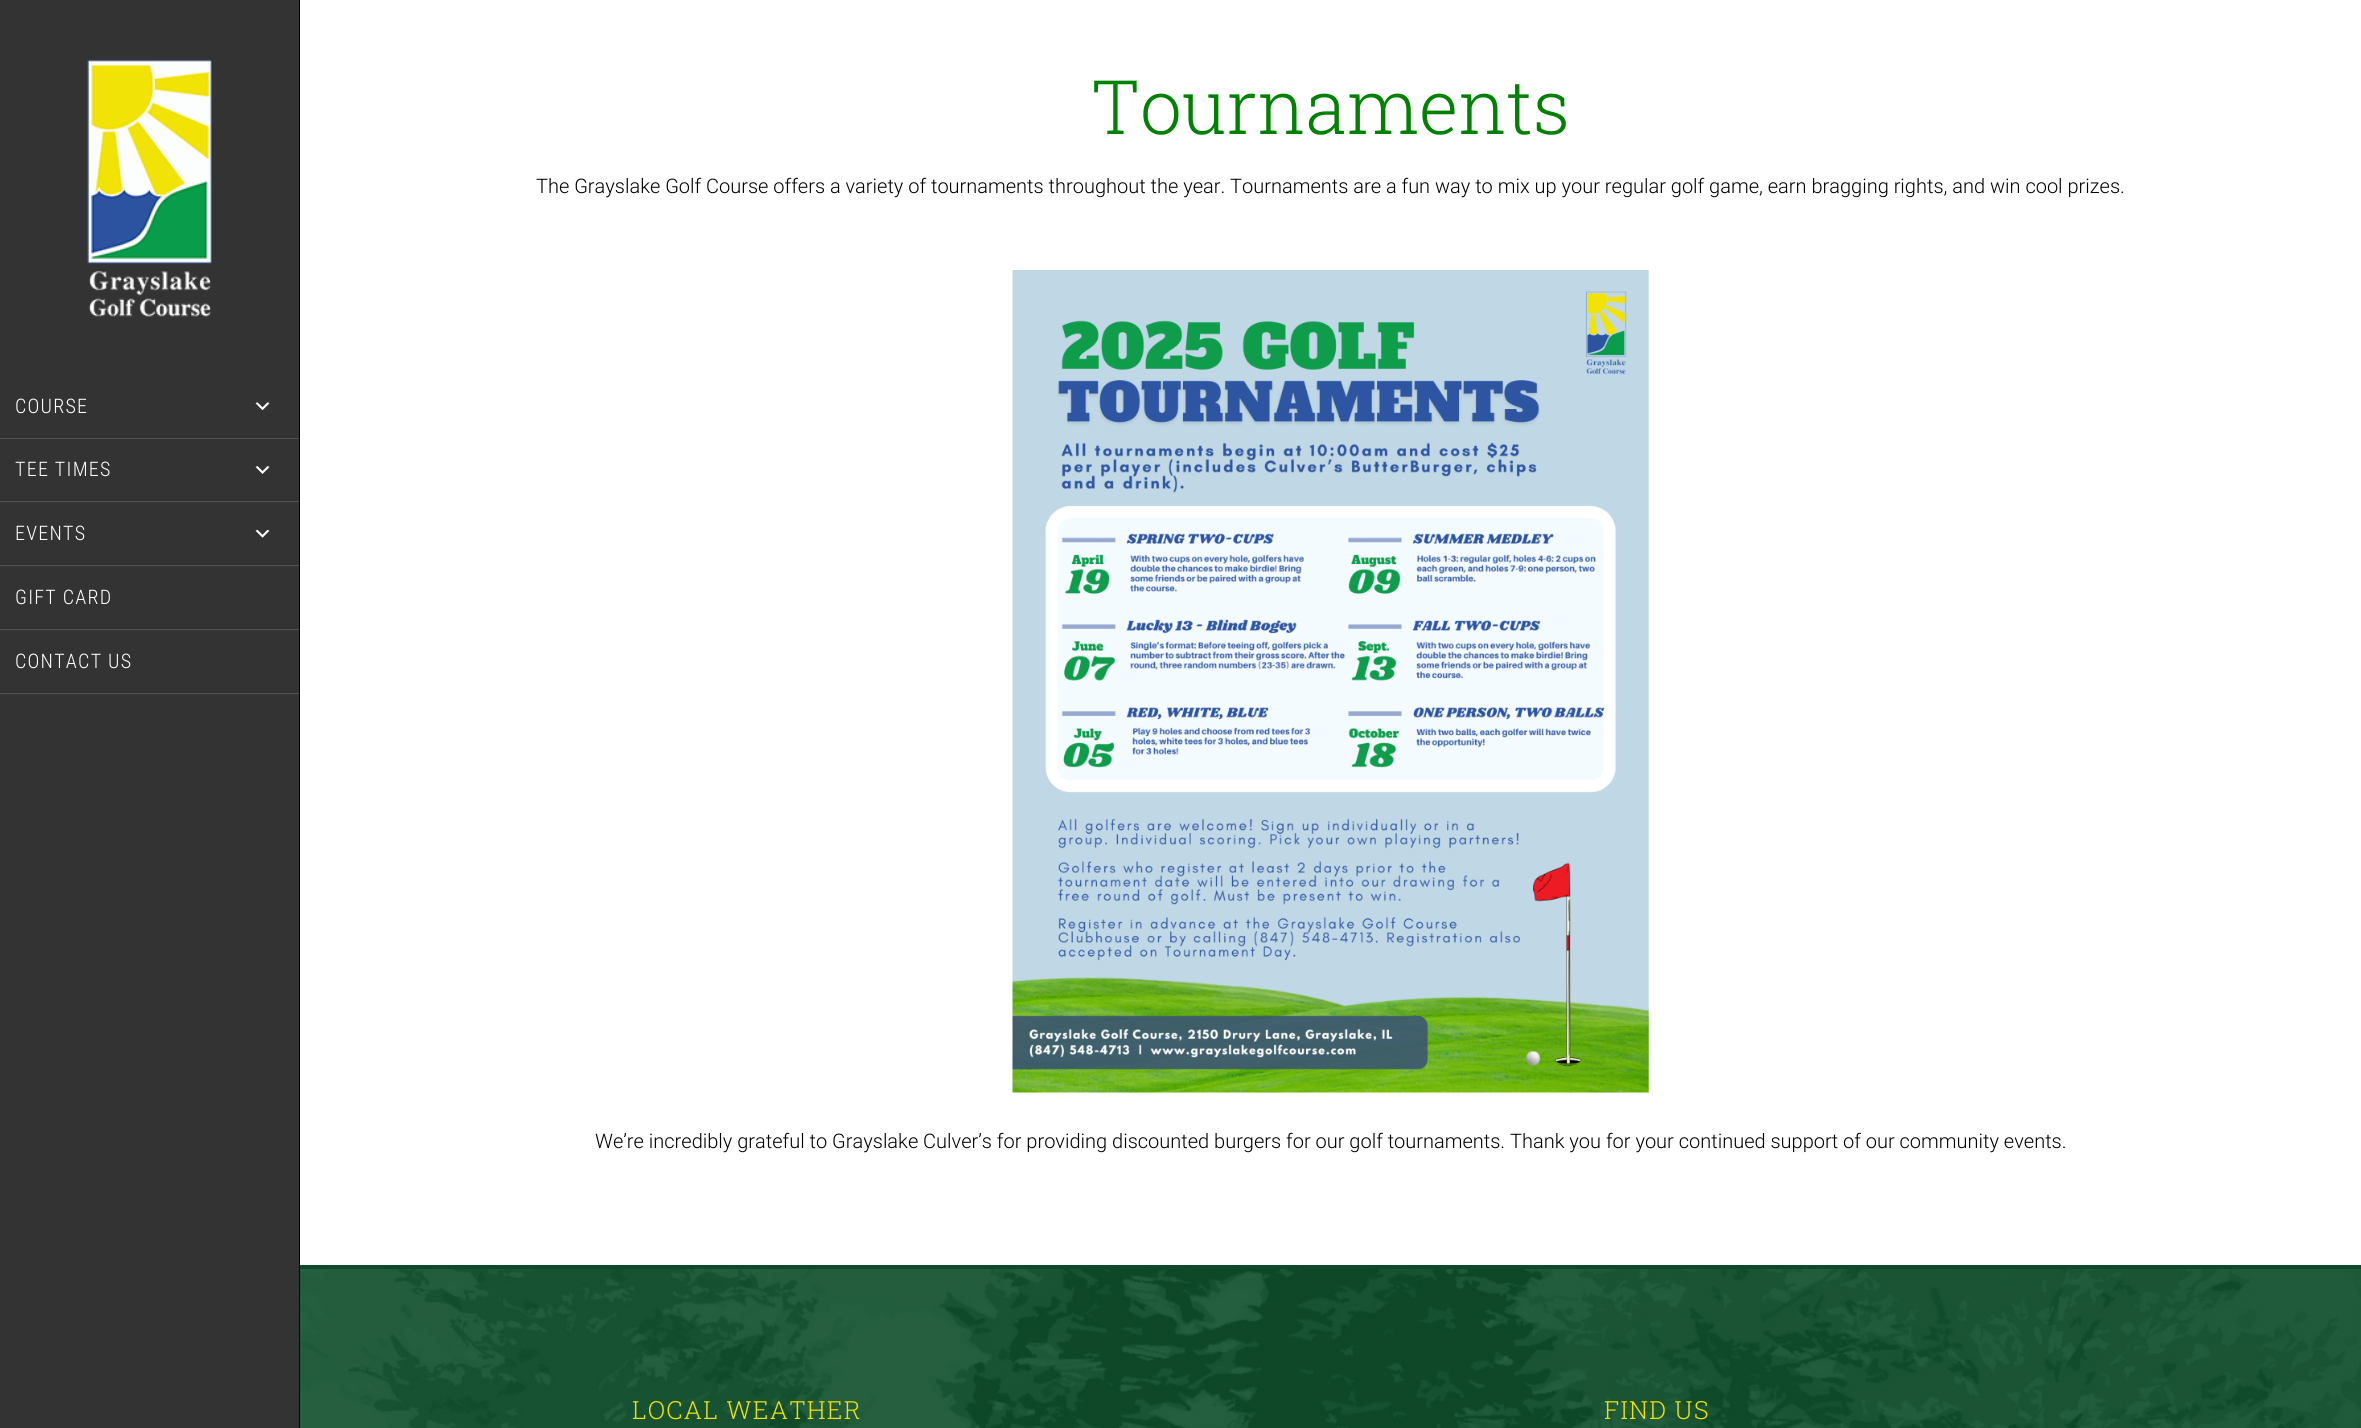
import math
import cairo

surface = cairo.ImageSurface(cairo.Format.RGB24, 2361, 1428)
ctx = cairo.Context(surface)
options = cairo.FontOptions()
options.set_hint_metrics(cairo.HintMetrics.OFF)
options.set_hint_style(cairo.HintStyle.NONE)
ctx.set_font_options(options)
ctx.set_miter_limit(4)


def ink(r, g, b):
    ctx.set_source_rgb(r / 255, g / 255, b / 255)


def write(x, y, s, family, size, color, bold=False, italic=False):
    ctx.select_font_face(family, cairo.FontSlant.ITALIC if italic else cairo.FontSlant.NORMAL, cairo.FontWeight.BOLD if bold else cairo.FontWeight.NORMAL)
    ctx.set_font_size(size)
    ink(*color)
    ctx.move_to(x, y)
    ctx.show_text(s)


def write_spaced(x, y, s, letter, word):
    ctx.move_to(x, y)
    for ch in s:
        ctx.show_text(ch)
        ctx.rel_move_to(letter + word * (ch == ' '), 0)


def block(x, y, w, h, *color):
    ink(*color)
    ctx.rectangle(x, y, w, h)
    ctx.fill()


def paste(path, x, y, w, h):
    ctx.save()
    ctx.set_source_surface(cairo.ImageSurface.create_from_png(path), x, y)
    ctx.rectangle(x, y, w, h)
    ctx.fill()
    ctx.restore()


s1 = dict(family="Roboto Slab Light", size=75, color=(0, 129, 2))
s2 = dict(family="Roboto Light", size=20, color=(0, 0, 0))

ink(255, 255, 255)
ctx.paint()
block(0, 0, 299, 1428, 51, 51, 51)
block(299, 0, 1, 1428, 0, 0, 0)
paste("pic1.png", 87, 59, 125, 258)
block(0, 438, 299, 1, 80, 80, 80)
ctx.select_font_face("Roboto Condensed Light")
ctx.set_font_size(20)
ink(255, 255, 255)
write_spaced(15, 413, "COURSE", 1.25, 0)
paste("pic2.png", 255, 402, 15, 9)
block(0, 501, 299, 1, 80, 80, 80)
ink(255, 255, 255)
write_spaced(15, 476, "TEE TIMES", 1.25, 0)
paste("pic3.png", 255, 466, 15, 8)
block(0, 565, 299, 1, 80, 80, 80)
ink(255, 255, 255)
write_spaced(15, 540, "EVENTS", 1.25, 0)
paste("pic4.png", 255, 529, 15, 9)
block(0, 629, 299, 1, 80, 80, 80)
ink(255, 255, 255)
write_spaced(15, 604, "GIFT CARD", 1.25, 0)
block(0, 693, 299, 1, 80, 80, 80)
ink(255, 255, 255)
write_spaced(15, 668, "CONTACT US", 1.25, 0)
write(1091, 134, "Tournaments", **s1)
write(536, 193, "The Grayslake Golf Course offers a variety of tournaments throughout the year. Tournaments are a fun way to mix up your regular golf game, earn bragging rights, and win cool prizes.", **s2)
paste("pic5.png", 1012, 270, 637, 823)
write(595, 1148, "We’re incredibly grateful to Grayslake Culver’s for providing discounted burgers for our golf tournaments. Thank you for your continued support of our community events.", **s2)
paste("pic6.png", 300, 1269, 2061, 159)
block(300, 1265, 2061, 4, 14, 73, 41)
ctx.select_font_face("Roboto Slab Light")
ctx.set_font_size(25)
ink(241, 227, 6)
write_spaced(632, 1419, "LOCAL WEATHER", 1.25, 0)
write_spaced(1604, 1419, "FIND US", 1.25, 0)
surface.write_to_png("screenshot.png")
